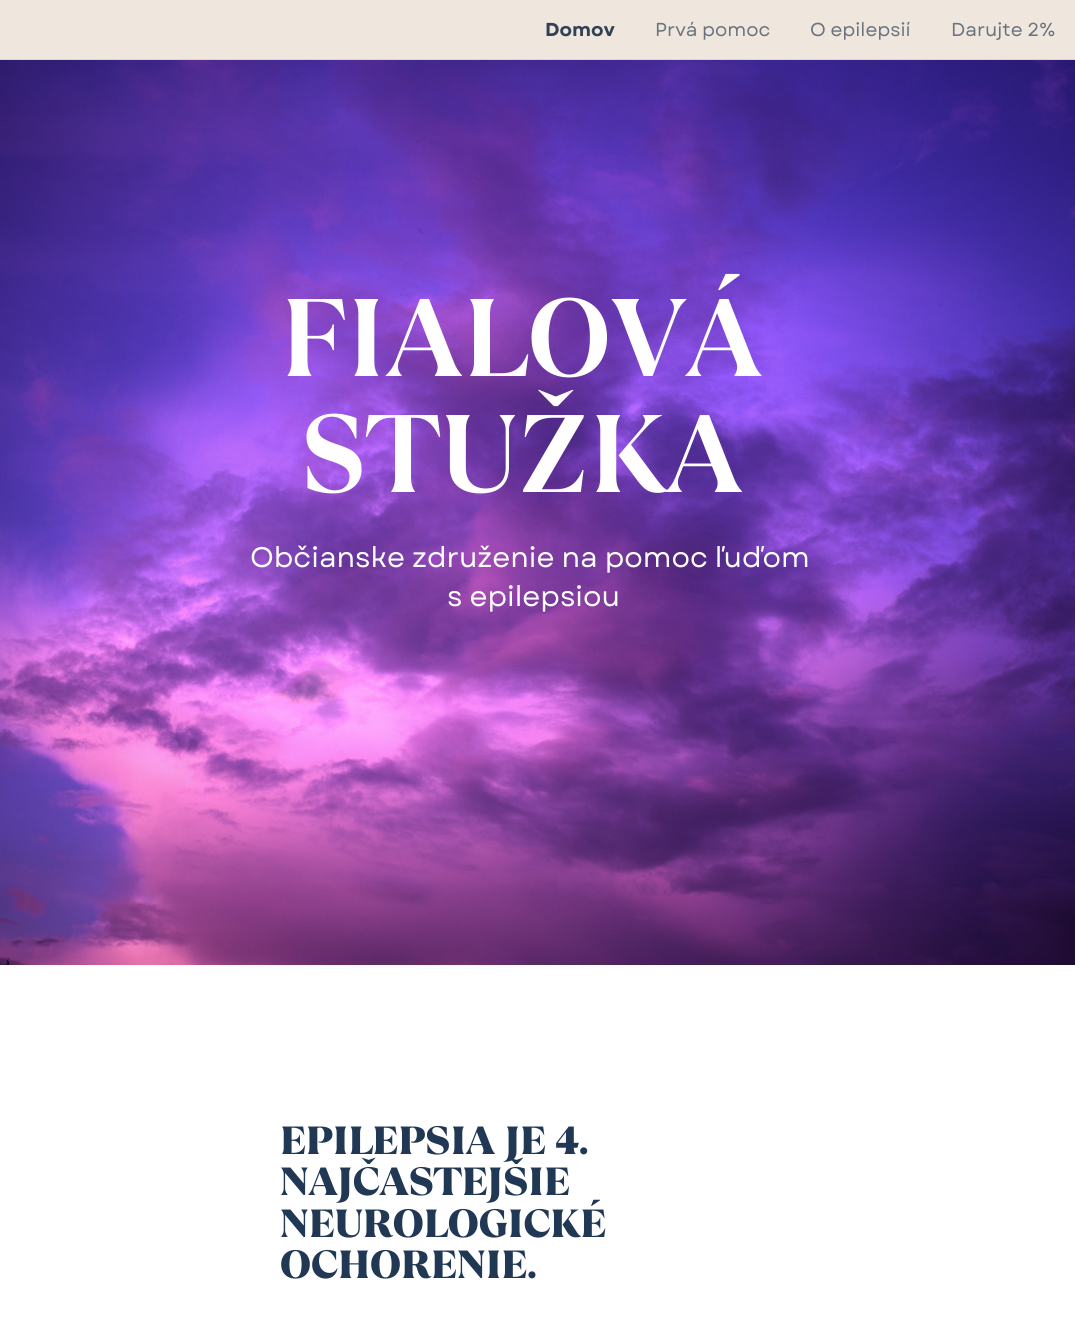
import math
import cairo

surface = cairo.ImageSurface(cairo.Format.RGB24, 1075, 1324)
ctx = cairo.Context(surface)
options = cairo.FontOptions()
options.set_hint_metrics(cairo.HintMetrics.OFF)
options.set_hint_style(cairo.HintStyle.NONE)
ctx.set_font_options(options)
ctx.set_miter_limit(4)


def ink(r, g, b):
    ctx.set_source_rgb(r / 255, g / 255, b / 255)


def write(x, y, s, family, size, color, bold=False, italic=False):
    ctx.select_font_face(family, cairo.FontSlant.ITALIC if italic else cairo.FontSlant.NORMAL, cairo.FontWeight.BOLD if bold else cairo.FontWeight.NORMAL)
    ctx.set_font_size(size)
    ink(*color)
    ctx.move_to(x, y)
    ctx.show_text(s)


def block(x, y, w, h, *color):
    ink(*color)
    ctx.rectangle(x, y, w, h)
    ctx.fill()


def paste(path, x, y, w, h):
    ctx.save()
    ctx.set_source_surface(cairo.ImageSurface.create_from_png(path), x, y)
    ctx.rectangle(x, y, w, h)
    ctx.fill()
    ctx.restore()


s1 = dict(family="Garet", size=18.75, color=(48, 66, 84), bold=True)
s2 = dict(family="Garet", size=18.75, color=(105, 115, 125))
s3 = dict(family="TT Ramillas", size=110, color=(255, 255, 255), bold=True)
s4 = dict(family="Garet", size=28.3, color=(255, 255, 255))
s5 = dict(family="TT Ramillas Black", size=39.25, color=(33, 56, 84))

ink(255, 255, 255)
ctx.paint()
block(0, 0, 1075, 59, 239, 230, 221)
block(0, 59, 1075, 1, 222, 214, 206)
write(545, 36, "Domov", **s1)
write(655, 36, "Prvá pomoc", **s2)
write(810, 36, "O epilepsií", **s2)
write(951, 36, "Darujte 2%", **s2)
paste("pic1.png", 0, 60, 1075, 905)
write(280, 376, "FIALOVÁ", **s3)
write(300, 492, "STUŽKA", **s3)
write(250, 567, "Občianske združenie na pomoc ľuďom", **s4)
write(447, 606, "s epilepsiou", **s4)
write(280, 1154, "EPILEPSIA JE 4.", **s5)
write(280, 1195, "NAJČASTEJŠIE", **s5)
write(280, 1237, "NEUROLOGICKÉ", **s5)
write(280, 1278, "OCHORENIE.", **s5)
surface.write_to_png("screenshot.png")
